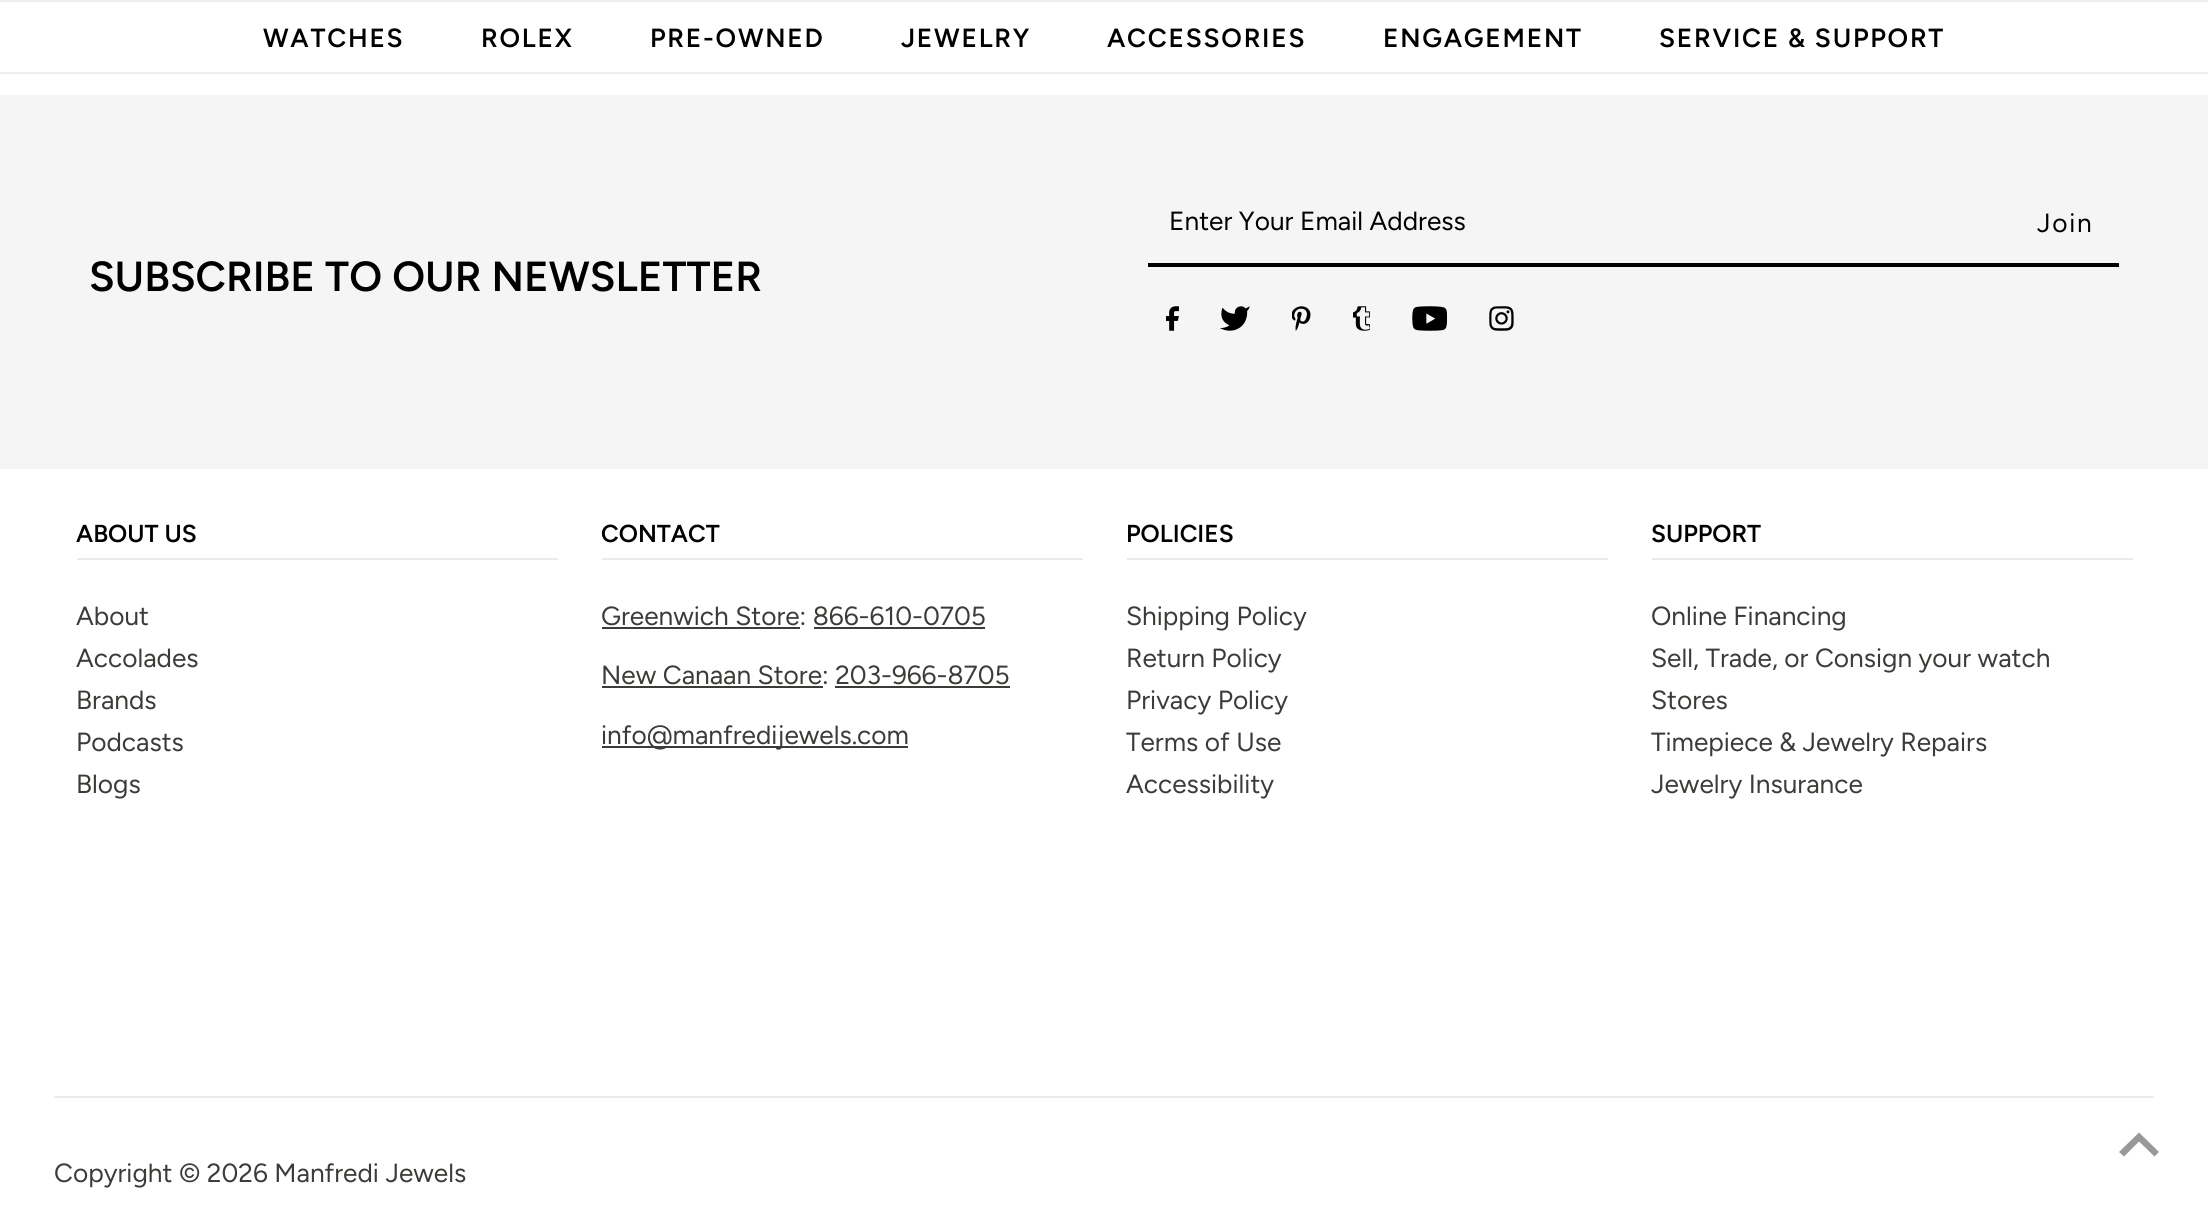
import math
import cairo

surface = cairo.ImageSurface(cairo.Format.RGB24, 2208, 1218)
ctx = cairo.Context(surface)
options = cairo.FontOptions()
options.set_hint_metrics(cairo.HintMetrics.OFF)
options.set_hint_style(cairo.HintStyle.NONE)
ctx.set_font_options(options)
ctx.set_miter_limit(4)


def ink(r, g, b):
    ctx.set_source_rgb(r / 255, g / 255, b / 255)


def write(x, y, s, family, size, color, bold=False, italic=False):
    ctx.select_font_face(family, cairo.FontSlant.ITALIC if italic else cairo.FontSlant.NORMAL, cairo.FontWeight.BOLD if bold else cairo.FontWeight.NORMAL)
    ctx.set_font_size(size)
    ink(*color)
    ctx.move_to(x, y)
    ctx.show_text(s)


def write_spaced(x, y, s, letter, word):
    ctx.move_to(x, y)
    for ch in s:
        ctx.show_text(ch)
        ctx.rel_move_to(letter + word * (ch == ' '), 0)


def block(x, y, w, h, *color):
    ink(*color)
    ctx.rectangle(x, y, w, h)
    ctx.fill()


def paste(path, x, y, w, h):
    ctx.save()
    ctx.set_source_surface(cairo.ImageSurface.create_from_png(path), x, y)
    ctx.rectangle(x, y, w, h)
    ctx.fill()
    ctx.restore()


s1 = dict(family="Figtree", size=26.25, color=(0, 0, 0))
s2 = dict(family="Figtree SemiBold", size=42, color=(0, 0, 0))
s3 = dict(family="Figtree SemiBold", size=24.5, color=(0, 0, 0))
s4 = dict(family="Figtree", size=26.25, color=(59, 59, 56))

ink(255, 255, 255)
ctx.paint()
block(0, 0, 2208, 2, 239, 239, 239)
block(0, 72, 2208, 2, 239, 239, 239)
ctx.select_font_face("Figtree SemiBold")
ctx.set_font_size(26.25)
ink(0, 0, 0)
write_spaced(263, 47, "WATCHES", 1.75, 0)
write_spaced(481, 47, "ROLEX", 1.75, 0)
write_spaced(650, 47, "PRE-OWNED", 1.75, 0)
write_spaced(901, 47, "JEWELRY", 1.75, 0)
write_spaced(1107, 47, "ACCESSORIES", 1.75, 0)
write_spaced(1383, 47, "ENGAGEMENT", 1.75, 0)
write_spaced(1659, 47, "SERVICE & SUPPORT", 1.75, 0)
block(0, 95, 2208, 374, 245, 245, 245)
block(1148, 263, 971, 4, 0, 0, 0)
write(1169, 230, "Enter Your Email Address", **s1)
write_spaced(2037, 232, "Join", 1.75, 0)
paste("pic1.png", 1166, 306, 13, 25)
paste("pic2.png", 1220, 306, 30, 25)
paste("pic3.png", 1292, 306, 19, 25)
paste("pic4.png", 1353, 306, 17, 25)
paste("pic5.png", 1412, 306, 35, 25)
paste("pic6.png", 1489, 306, 25, 25)
write(89, 291, "SUBSCRIBE TO OUR NEWSLETTER", **s2)
block(77, 558, 481, 2, 235, 235, 235)
write(76, 542, "ABOUT US", **s3)
write(76, 625, "About", **s4)
write(76, 667, "Accolades", **s4)
write(76, 709, "Brands", **s4)
write(76, 751, "Podcasts", **s4)
write(76, 793, "Blogs", **s4)
block(602, 558, 481, 2, 235, 235, 235)
write(601, 542, "CONTACT", **s3)
write(601, 625, "Greenwich Store: 866-610-0705", **s4)
block(602, 627, 198, 2, 59, 59, 56)
block(814, 627, 171, 2, 59, 59, 56)
write(601, 684, "New Canaan Store: 203-966-8705", **s4)
block(602, 686, 221, 2, 59, 59, 56)
block(835, 686, 175, 2, 59, 59, 56)
block(602, 746, 306, 2, 59, 59, 56)
write(601, 744, "info@manfredijewels.com", **s4)
block(1127, 558, 481, 2, 235, 235, 235)
write(1126, 542, "POLICIES", **s3)
write(1126, 625, "Shipping Policy", **s4)
write(1126, 667, "Return Policy", **s4)
write(1126, 709, "Privacy Policy", **s4)
write(1126, 751, "Terms of Use", **s4)
write(1126, 793, "Accessibility", **s4)
block(1652, 558, 481, 2, 235, 235, 235)
write(1651, 542, "SUPPORT", **s3)
write(1651, 625, "Online Financing", **s4)
write(1651, 667, "Sell, Trade, or Consign your watch", **s4)
write(1651, 709, "Stores", **s4)
write(1651, 751, "Timepiece & Jewelry Repairs", **s4)
write(1651, 793, "Jewelry Insurance", **s4)
block(54, 1096, 2100, 2, 235, 235, 235)
write(54, 1182, "Copyright © 2026 Manfredi Jewels", **s4)
ink(153, 153, 153)
ctx.new_path()
ctx.move_to(2139, 1132.5)
ctx.line_to(2119, 1152)
ctx.line_to(2124, 1156.5)
ctx.line_to(2139, 1141.5)
ctx.line_to(2154.5, 1156.5)
ctx.line_to(2159, 1152)
ctx.close_path()
ctx.fill()
surface.write_to_png("screenshot.png")
